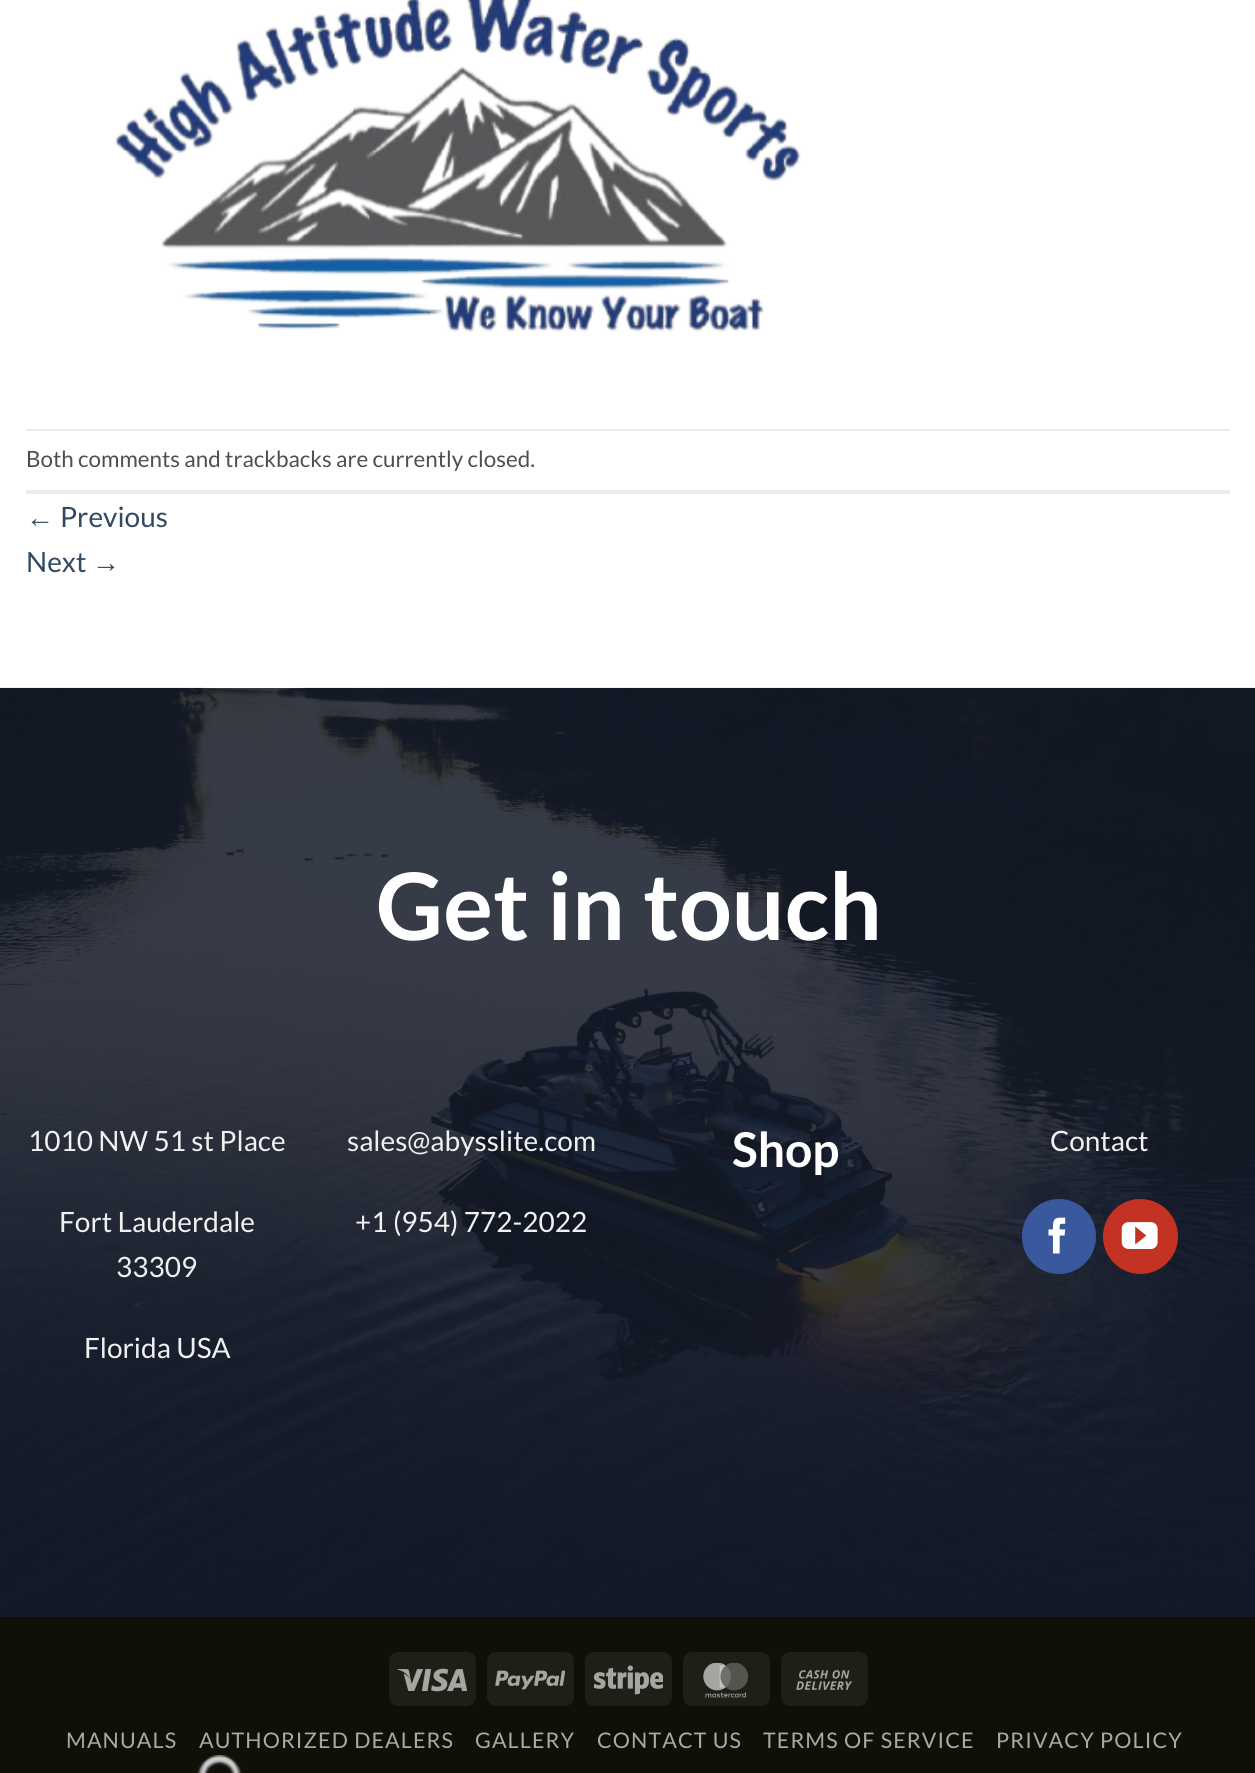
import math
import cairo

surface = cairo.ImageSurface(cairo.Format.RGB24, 1255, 1773)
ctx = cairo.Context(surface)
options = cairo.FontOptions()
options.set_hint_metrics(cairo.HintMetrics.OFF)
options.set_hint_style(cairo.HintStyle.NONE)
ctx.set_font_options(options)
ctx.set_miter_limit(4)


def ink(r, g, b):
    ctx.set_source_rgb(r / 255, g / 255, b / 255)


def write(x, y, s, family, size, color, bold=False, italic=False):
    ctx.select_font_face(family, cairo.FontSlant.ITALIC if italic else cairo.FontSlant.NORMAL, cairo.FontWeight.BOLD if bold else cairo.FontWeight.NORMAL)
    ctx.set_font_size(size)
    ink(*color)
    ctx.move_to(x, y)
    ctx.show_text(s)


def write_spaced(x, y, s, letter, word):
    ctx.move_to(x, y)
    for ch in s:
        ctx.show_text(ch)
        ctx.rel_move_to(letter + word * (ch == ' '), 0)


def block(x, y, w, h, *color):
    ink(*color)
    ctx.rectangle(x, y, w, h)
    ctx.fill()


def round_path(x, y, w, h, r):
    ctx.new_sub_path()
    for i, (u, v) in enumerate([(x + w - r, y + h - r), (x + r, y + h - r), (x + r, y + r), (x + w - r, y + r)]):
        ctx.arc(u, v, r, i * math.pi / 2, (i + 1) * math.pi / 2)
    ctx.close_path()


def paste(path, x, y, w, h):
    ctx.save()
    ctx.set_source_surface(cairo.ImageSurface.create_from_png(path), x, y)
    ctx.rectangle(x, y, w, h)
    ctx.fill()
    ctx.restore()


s1 = dict(family="Lato", size=22.4, color=(79, 79, 79))
s2 = dict(family="Liberation Sans", size=28, color=(51, 72, 98))
s3 = dict(family="Lato", size=28, color=(51, 72, 98))
s4 = dict(family="Lato", size=93, color=(255, 255, 255), bold=True)
s5 = dict(family="Lato", size=28, color=(241, 241, 241))
s6 = dict(family="Lato", size=48, color=(255, 255, 255), bold=True)

ink(255, 255, 255)
ctx.paint()
paste("pic1.png", 115, 0, 686, 332)
block(26, 429, 1204, 2, 236, 236, 236)
block(26, 490, 1204, 4, 236, 236, 236)
write(26, 467, "Both comments and trackbacks are currently closed.", **s1)
write(26, 527, "←", **s2)
write(60, 527, "Previous", **s3)
write(26, 572, "Next", **s3)
write(92, 572, "→", **s2)
paste("pic2.png", 0, 687, 1255, 930)
write(376, 940, "Get in touch", **s4)
write(28, 1151, "1010 NW 51 st Place", **s5)
write(59, 1232, "Fort Lauderdale", **s5)
write(116, 1277, "33309", **s5)
write(84, 1358, "Florida USA", **s5)
write(347, 1151, "sales@abysslite.com", **s5)
write(355, 1232, "+1 (954) 772-2022", **s5)
write(732, 1167, "Shop", **s6)
write(1050, 1151, "Contact", **s5)
ink(58, 88, 157)
round_path(1023, 1200, 72, 73, 36)
ctx.fill_preserve()
ctx.stroke()
paste("pic3.png", 1048, 1217, 18, 37)
ink(195, 50, 35)
ctx.arc(1140.5, 1236.5, 36.5, 0, 2 * math.pi)
ctx.fill_preserve()
ctx.stroke()
paste("pic4.png", 1121, 1222, 37, 27)
block(0, 1617, 1255, 156, 17, 16, 8)
ink(31, 30, 23)
round_path(389, 1652, 87, 54, 9)
ctx.fill()
paste("pic5.png", 397, 1668, 70, 24)
round_path(487, 1652, 87, 54, 9)
ctx.fill()
paste("pic6.png", 495, 1670, 70, 20)
round_path(585, 1652, 87, 54, 9)
ctx.fill()
paste("pic7.png", 593, 1665, 70, 30)
round_path(683, 1652, 87, 54, 9)
ctx.fill()
paste("pic8.png", 703, 1663, 46, 35)
round_path(781, 1652, 87, 54, 9)
ctx.fill()
paste("pic9.png", 796, 1670, 57, 20)
ctx.set_font_size(21.5)
ink(169, 169, 166)
write_spaced(66, 1748, "MANUALS", 1.1, 0)
write_spaced(199, 1748, "AUTHORIZED DEALERS", 1.1, 0)
write_spaced(475, 1748, "GALLERY", 1.1, 0)
write_spaced(597, 1748, "CONTACT US", 1.1, 0)
write_spaced(763, 1748, "TERMS OF SERVICE", 1.1, 0)
write_spaced(996, 1748, "PRIVACY POLICY", 1.1, 0)
paste("pic10.png", 197, 1755, 45, 18)
surface.write_to_png("screenshot.png")
